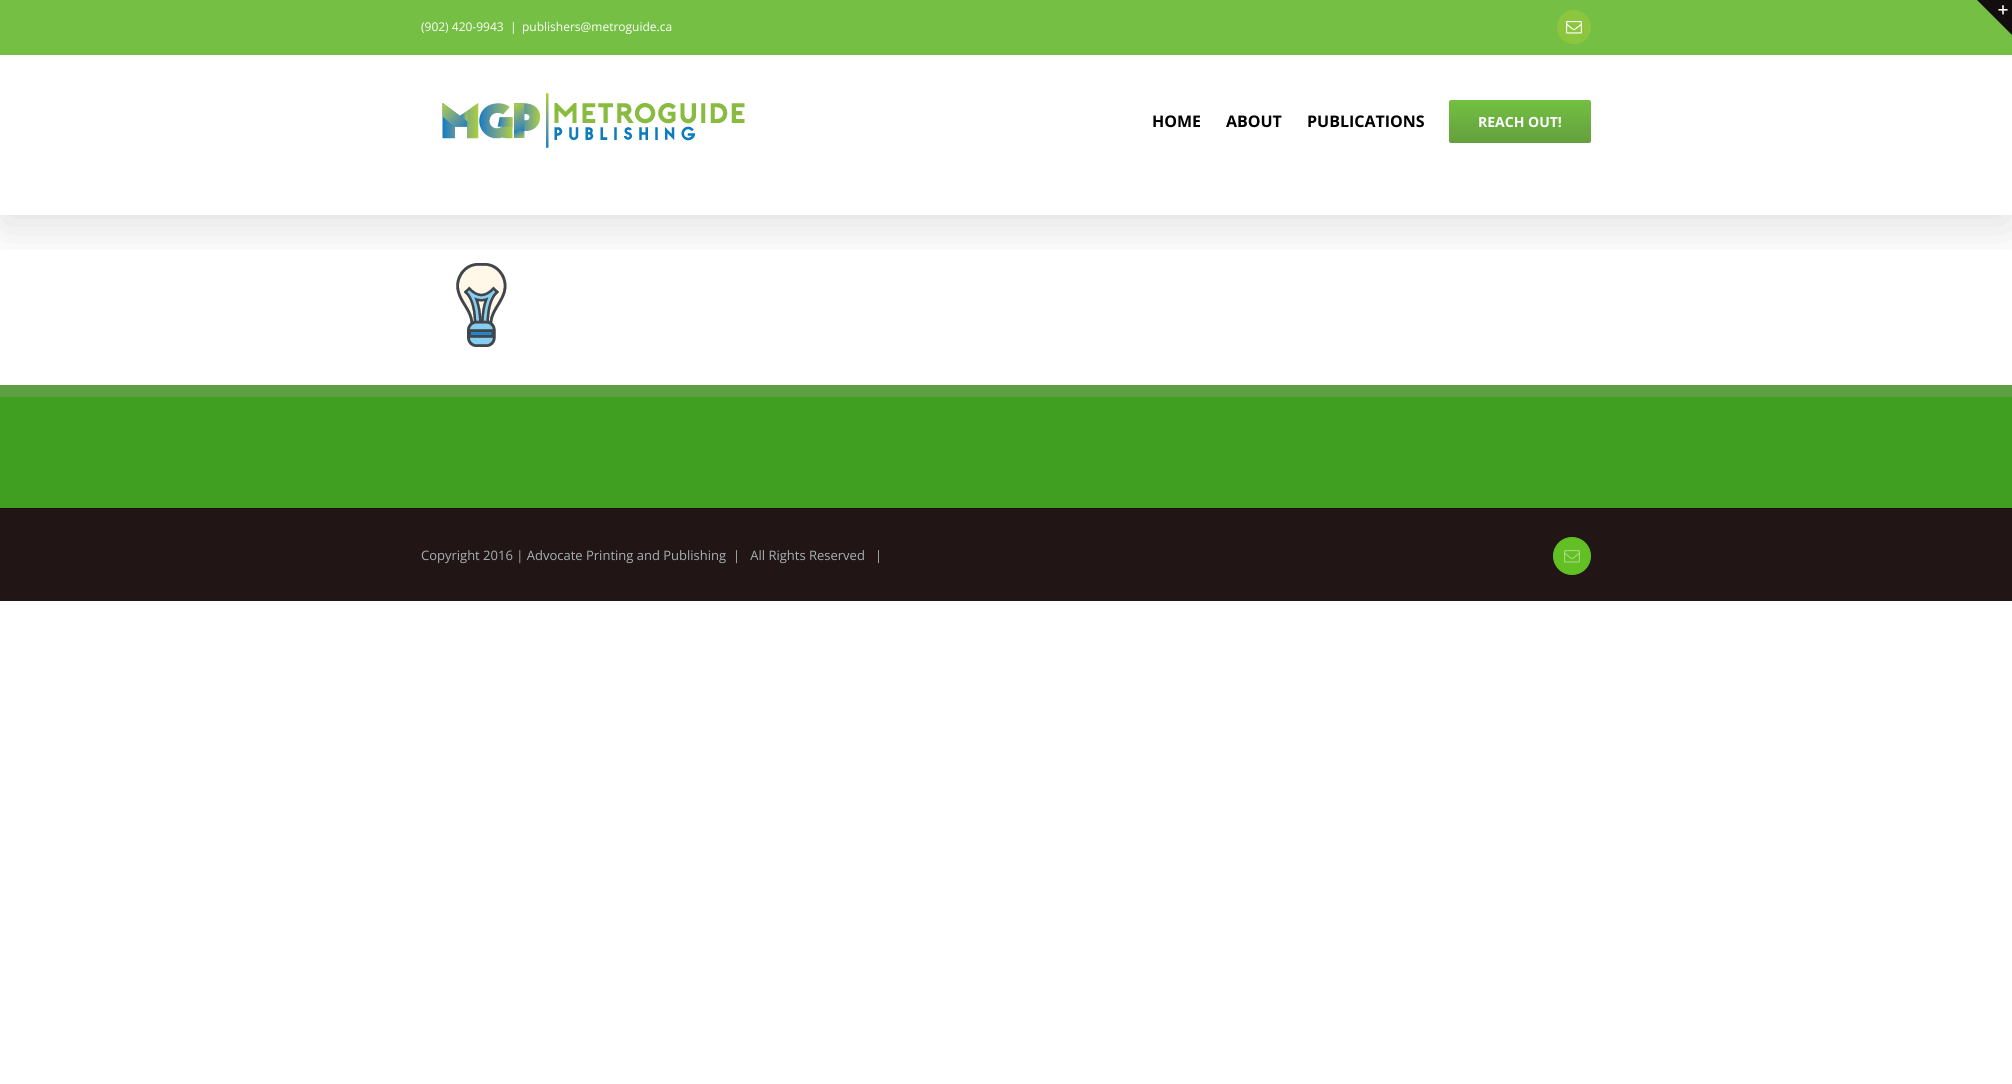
import math
import cairo

surface = cairo.ImageSurface(cairo.Format.RGB24, 2012, 1084)
ctx = cairo.Context(surface)
options = cairo.FontOptions()
options.set_hint_metrics(cairo.HintMetrics.OFF)
options.set_hint_style(cairo.HintStyle.NONE)
ctx.set_font_options(options)
ctx.set_miter_limit(4)


def ink(r, g, b):
    ctx.set_source_rgb(r / 255, g / 255, b / 255)


def write(x, y, s, family, size, color, bold=False, italic=False):
    ctx.select_font_face(family, cairo.FontSlant.ITALIC if italic else cairo.FontSlant.NORMAL, cairo.FontWeight.BOLD if bold else cairo.FontWeight.NORMAL)
    ctx.set_font_size(size)
    ink(*color)
    ctx.move_to(x, y)
    ctx.show_text(s)


def block(x, y, w, h, *color):
    ink(*color)
    ctx.rectangle(x, y, w, h)
    ctx.fill()


def round_path(x, y, w, h, r):
    ctx.new_sub_path()
    for i, (u, v) in enumerate([(x + w - r, y + h - r), (x + r, y + h - r), (x + r, y + r), (x + w - r, y + r)]):
        ctx.arc(u, v, r, i * math.pi / 2, (i + 1) * math.pi / 2)
    ctx.close_path()


def blur_box(x, y, w, h, r, blur, alpha):
    ctx.push_group_with_content(cairo.Content.ALPHA)
    ctx.set_operator(cairo.Operator.SOURCE)
    for i in range(15, -16, -2):
        e = blur * i / 6
        if min(w, h) + 2 * e > 0:
            ctx.set_source_rgba(0, 0, 0, alpha * math.erfc((i - 1) / 8.5) / 2)
            round_path(x - e, y - e, w + 2 * e, h + 2 * e, max(0, min(r + e + blur * .6, min(w, h) / 2 + e)))
            ctx.fill()
    ctx.mask(ctx.pop_group())


def paste(path, x, y, w, h):
    ctx.save()
    ctx.set_source_surface(cairo.ImageSurface.create_from_png(path), x, y)
    ctx.rectangle(x, y, w, h)
    ctx.fill()
    ctx.restore()


s1 = dict(family="Open Sans", size=12, color=(255, 255, 255))
s2 = dict(family="Open Sans", size=16, color=(0, 0, 0), bold=True)
s3 = dict(family="Open Sans", size=14, color=(255, 255, 255), bold=True)
s4 = dict(family="Open Sans", size=13, color=(166, 176, 179))

ink(255, 255, 255)
ctx.paint()
paste("pic4.png", 456, 263, 51, 84)
ctx.save()
ctx.rectangle(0, 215, 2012, 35)
ctx.clip()
ink(0, 0, 0)
blur_box(2, 12, 2008, 211, 0, 25, 0.14)
ctx.restore()
block(0, 0, 2012, 55, 117, 192, 68)
ink(17, 14, 13)
ctx.new_path()
ctx.move_to(1977, 0)
ctx.line_to(2012, 0)
ctx.line_to(2012, 35)
ctx.close_path()
ctx.fill()
paste("pic1.png", 1998, 5, 10, 10)
write(421, 31, "(902) 420-9943", **s1)
write(510, 31, "|", **s1)
write(522, 31, "publishers@metroguide.ca", **s1)
ink(140, 198, 63)
ctx.new_path()
ctx.arc(1574, 27, 16.5, 0, 2 * math.pi)
ctx.fill_preserve()
ctx.set_line_width(1)
ctx.stroke()
paste("pic2.png", 1566, 21, 16, 13)
paste("pic3.png", 442, 93, 303, 55)
write(1152, 127, "HOME", **s2)
write(1226, 127, "ABOUT", **s2)
write(1307, 127, "PUBLICATIONS", **s2)
gradient = cairo.LinearGradient(1520, 143, 1520, 100)
gradient.add_color_stop_rgba(0, 0.392, 0.627, 0.239, 1)
gradient.add_color_stop_rgba(1, 0.451, 0.753, 0.263, 1)
ctx.set_source(gradient)
round_path(1449, 100, 142, 43, 2)
ctx.fill()
write(1478, 127, "REACH OUT!", **s3)
block(0, 397, 2012, 111, 64, 158, 33)
block(0, 385, 2012, 12, 93, 159, 67)
block(0, 509, 2012, 92, 33, 22, 21)
block(0, 508, 2012, 1, 22, 18, 16)
write(421, 560, "Copyright 2016 | Advocate Printing and Publishing", **s4)
write(733, 560, "|   All Rights Reserved   |", **s4)
ink(98, 191, 36)
ctx.new_path()
ctx.arc(1572, 556, 18.5, 0, 2 * math.pi)
ctx.fill_preserve()
ctx.stroke()
paste("pic5.png", 1564, 550, 16, 13)
surface.write_to_png("screenshot.png")
